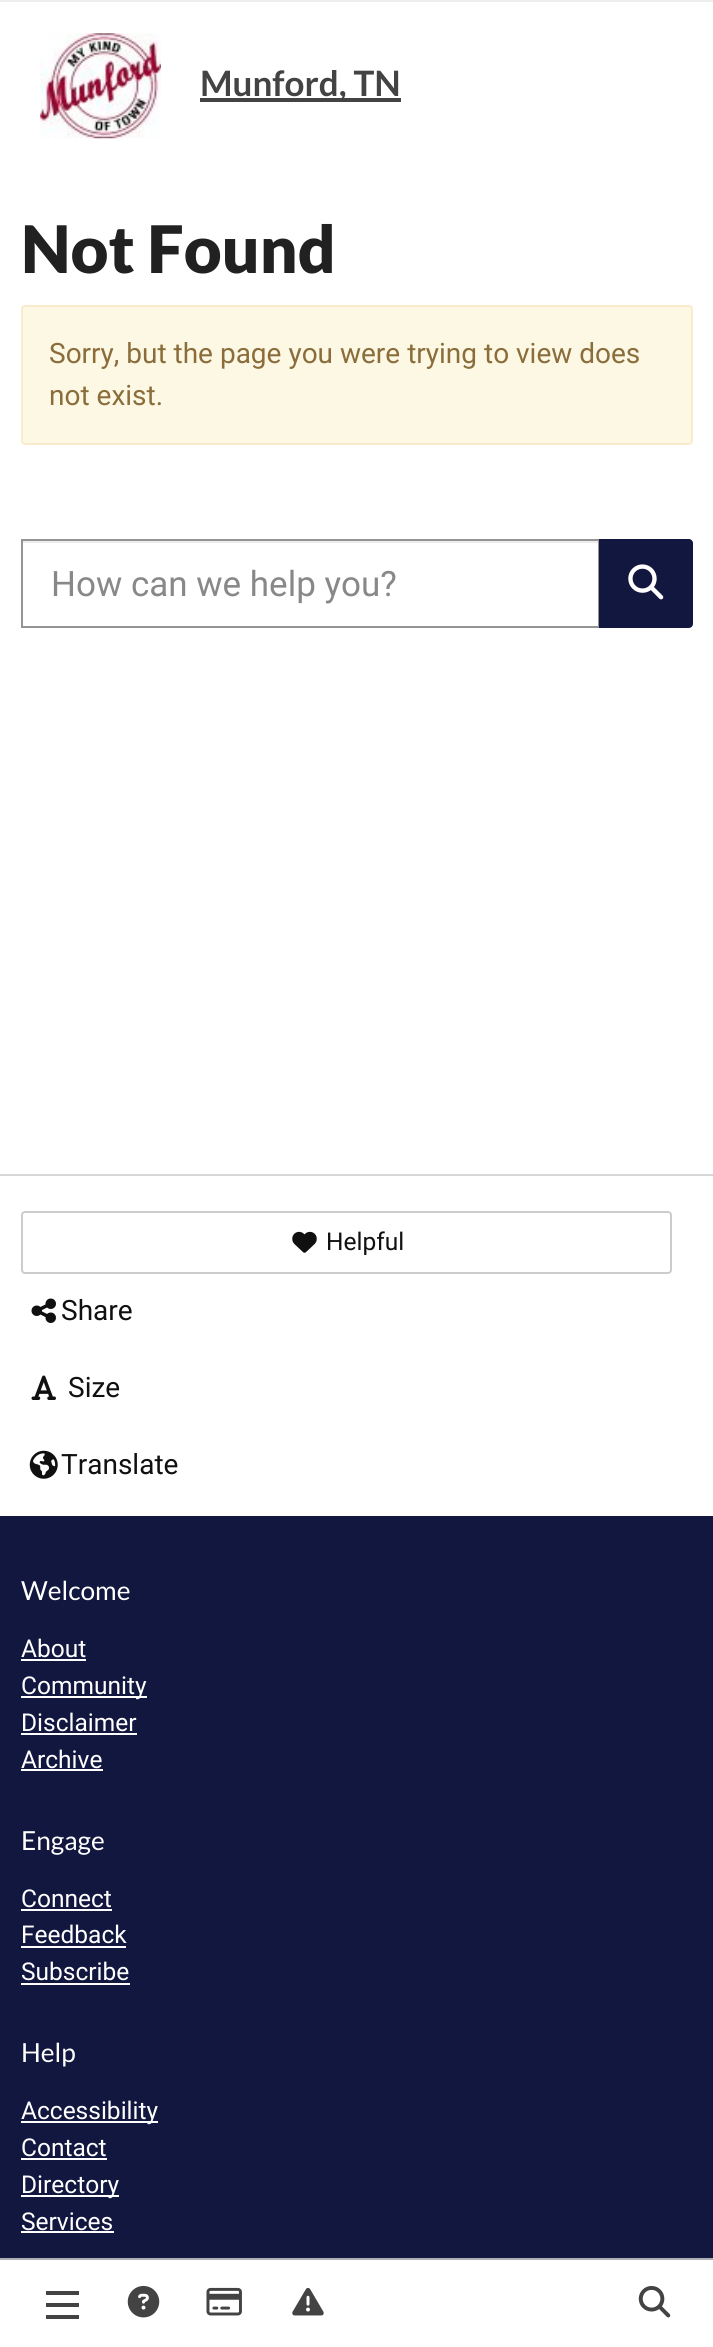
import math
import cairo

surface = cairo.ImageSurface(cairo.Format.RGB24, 713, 2347)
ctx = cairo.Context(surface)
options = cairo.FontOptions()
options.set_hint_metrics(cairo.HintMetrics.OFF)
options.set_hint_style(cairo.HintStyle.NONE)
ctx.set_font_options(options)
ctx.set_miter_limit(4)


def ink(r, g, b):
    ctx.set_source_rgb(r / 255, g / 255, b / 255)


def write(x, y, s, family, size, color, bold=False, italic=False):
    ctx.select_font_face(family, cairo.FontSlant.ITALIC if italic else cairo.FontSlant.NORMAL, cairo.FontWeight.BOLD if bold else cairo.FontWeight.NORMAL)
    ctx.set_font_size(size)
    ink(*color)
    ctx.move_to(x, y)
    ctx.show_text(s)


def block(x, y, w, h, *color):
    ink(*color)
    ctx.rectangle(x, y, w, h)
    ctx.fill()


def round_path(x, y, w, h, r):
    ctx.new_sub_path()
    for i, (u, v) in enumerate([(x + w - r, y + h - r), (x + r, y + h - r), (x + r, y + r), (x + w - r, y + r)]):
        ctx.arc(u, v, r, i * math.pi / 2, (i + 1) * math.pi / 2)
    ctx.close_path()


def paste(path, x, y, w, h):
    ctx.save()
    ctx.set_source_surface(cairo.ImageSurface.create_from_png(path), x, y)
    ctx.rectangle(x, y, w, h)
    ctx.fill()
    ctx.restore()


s1 = dict(family="Lato", size=35, color=(67, 67, 67), bold=True)
s2 = dict(family="Lato Black", size=65.5, color=(33, 33, 33))
s3 = dict(family="Roboto", size=28, color=(138, 109, 59))
s4 = dict(family="Roboto", size=35, color=(136, 136, 136))
s5 = dict(family="Roboto", size=24.5, color=(16, 16, 16))
s6 = dict(family="Roboto", size=28, color=(16, 16, 16))
s7 = dict(family="Lato", size=26.25, color=(255, 255, 255))
s8 = dict(family="Roboto", size=24.5, color=(255, 255, 255))

ink(255, 255, 255)
ctx.paint()
block(0, 0, 713, 2, 238, 238, 238)
block(0, 2258, 713, 2, 174, 176, 181)
paste("pic1.png", 127, 2285, 33, 33)
paste("pic2.png", 206, 2287, 36, 29)
paste("pic3.png", 292, 2287, 32, 29)
paste("pic4.png", 638, 2285, 33, 33)
block(46, 2303, 33, 4, 67, 67, 67)
block(46, 2291, 33, 4, 67, 67, 67)
block(46, 2315, 33, 4, 67, 67, 67)
paste("pic5.png", 40, 33, 121, 106)
block(200, 98, 201, 4, 67, 67, 67)
write(200, 96, "Munford, TN", **s1)
write(21, 273, "Not Found", **s2)
ink(252, 248, 227)
round_path(22, 306, 670, 138, 3)
ctx.fill_preserve()
ink(250, 235, 204)
ctx.stroke()
write(49, 363, "Sorry, but the page you were trying to view does", **s3)
write(49, 405, "not exist.", **s3)
block(23, 541, 576, 2, 236, 236, 236)
ctx.rectangle(22, 540, 577, 87)
ink(148, 148, 148)
ctx.stroke()
write(51, 596, "How can we help you?", **s4)
ink(18, 23, 63)
ctx.new_path()
ctx.move_to(600, 540)
ctx.line_to(689, 540)
ctx.curve_to(690.5, 540, 692, 541.5, 692, 543)
ctx.line_to(692, 624)
ctx.curve_to(692, 625.5, 690.5, 627, 689, 627)
ctx.line_to(600, 627)
ctx.close_path()
ctx.fill_preserve()
ctx.stroke()
paste("pic6.png", 628, 564, 36, 36)
block(0, 1174, 713, 2, 214, 215, 217)
round_path(22, 1212, 649, 61, 3)
ink(204, 204, 204)
ctx.stroke()
paste("pic7.png", 292, 1231, 25, 22)
write(326, 1250, "Helpful", **s5)
paste("pic8.png", 31, 1298, 25, 25)
write(61, 1320, "Share", **s6)
paste("pic9.png", 31, 1375, 25, 25)
write(68, 1397, "Size", **s6)
paste("pic10.png", 29, 1450, 29, 29)
write(61, 1474, "Translate", **s6)
block(0, 1516, 713, 742, 18, 23, 63)
write(21, 1600, "Welcome", **s7)
write(21, 1657, "About", **s8)
block(21, 1659, 65, 2, 255, 255, 255)
block(21, 1696, 126, 2, 255, 255, 255)
write(21, 1694, "Community", **s8)
write(21, 1731, "Disclaimer", **s8)
block(21, 1733, 116, 2, 255, 255, 255)
write(21, 1768, "Archive", **s8)
block(21, 1769, 82, 2, 255, 255, 255)
write(21, 1850, "Engage", **s7)
write(21, 1907, "Connect", **s8)
block(21, 1909, 91, 2, 255, 255, 255)
write(21, 1943, "Feedback", **s8)
block(21, 1946, 105, 2, 255, 255, 255)
write(21, 1980, "Subscribe", **s8)
block(21, 1983, 109, 2, 255, 255, 255)
write(21, 2062, "Help", **s7)
block(21, 2121, 137, 2, 255, 255, 255)
write(21, 2119, "Accessibility", **s8)
write(21, 2156, "Contact", **s8)
block(21, 2158, 86, 2, 255, 255, 255)
block(21, 2195, 98, 2, 255, 255, 255)
write(21, 2193, "Directory", **s8)
write(21, 2230, "Services", **s8)
block(21, 2231, 93, 2, 255, 255, 255)
surface.write_to_png("screenshot.png")
